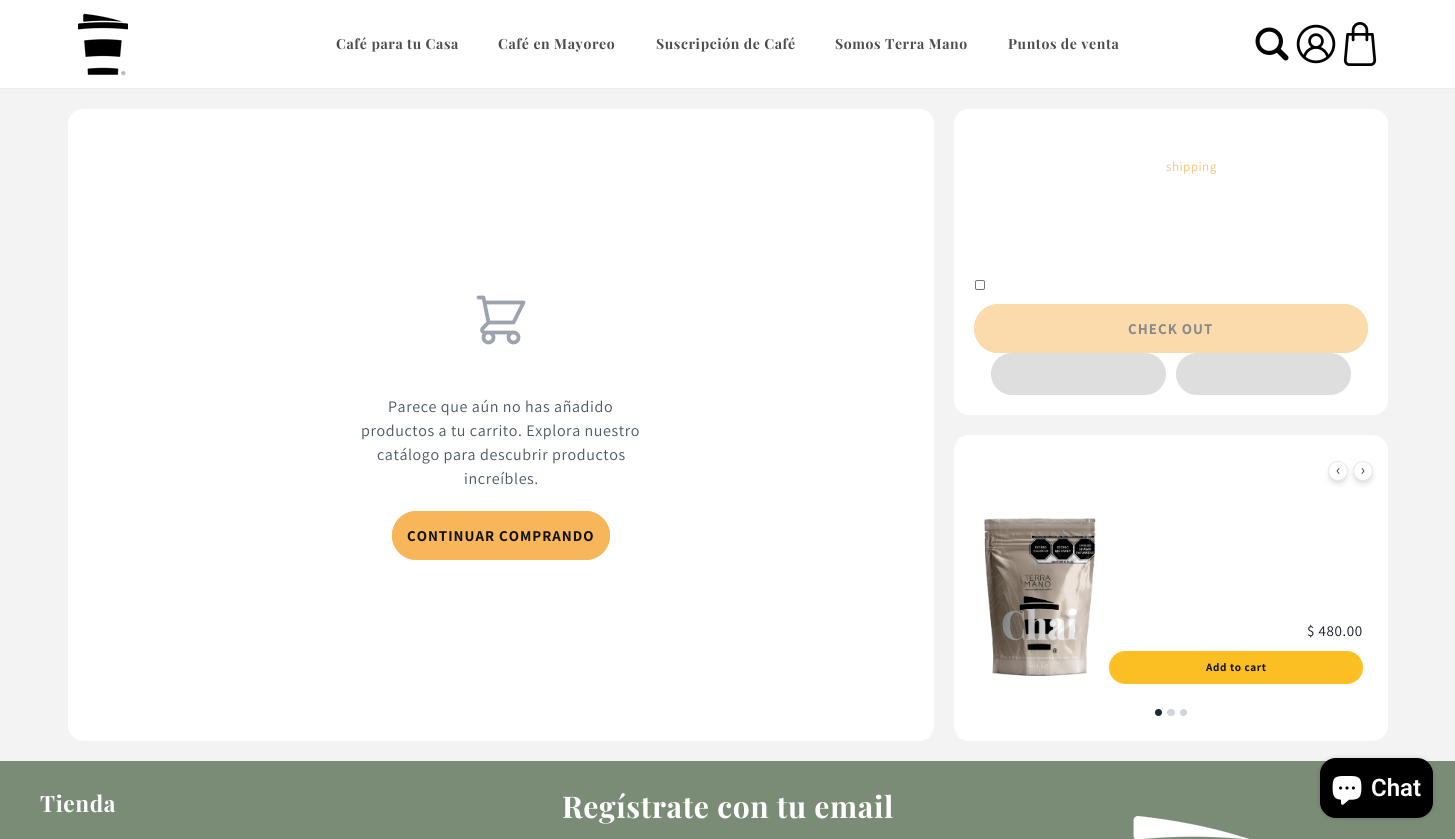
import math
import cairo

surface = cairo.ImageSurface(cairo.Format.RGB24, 1455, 839)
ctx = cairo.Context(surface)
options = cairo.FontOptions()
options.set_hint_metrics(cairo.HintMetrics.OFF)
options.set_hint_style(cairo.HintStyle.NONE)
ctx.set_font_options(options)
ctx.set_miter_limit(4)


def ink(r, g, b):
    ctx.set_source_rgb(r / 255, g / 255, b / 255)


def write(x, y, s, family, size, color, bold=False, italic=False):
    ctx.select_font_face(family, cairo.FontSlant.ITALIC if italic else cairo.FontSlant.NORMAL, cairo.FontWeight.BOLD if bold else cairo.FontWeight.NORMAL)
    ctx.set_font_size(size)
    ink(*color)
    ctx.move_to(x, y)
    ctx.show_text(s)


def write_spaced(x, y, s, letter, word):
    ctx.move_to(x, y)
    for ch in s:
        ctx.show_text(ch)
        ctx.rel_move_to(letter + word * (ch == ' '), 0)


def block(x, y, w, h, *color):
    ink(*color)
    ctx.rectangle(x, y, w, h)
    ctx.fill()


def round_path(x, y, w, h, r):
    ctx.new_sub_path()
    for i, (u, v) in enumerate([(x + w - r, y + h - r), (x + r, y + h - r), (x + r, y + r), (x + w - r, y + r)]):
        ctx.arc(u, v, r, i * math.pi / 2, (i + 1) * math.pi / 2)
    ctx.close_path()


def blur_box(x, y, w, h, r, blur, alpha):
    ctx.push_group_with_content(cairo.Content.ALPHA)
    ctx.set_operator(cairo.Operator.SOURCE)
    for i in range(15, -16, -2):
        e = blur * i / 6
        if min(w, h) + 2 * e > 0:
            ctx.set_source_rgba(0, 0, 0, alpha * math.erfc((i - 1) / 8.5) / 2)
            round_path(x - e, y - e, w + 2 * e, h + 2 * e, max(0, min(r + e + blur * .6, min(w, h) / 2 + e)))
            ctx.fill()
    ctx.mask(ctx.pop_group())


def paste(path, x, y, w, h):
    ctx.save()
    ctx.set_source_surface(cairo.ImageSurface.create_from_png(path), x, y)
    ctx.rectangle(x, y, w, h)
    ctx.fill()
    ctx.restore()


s1 = dict(family="Roboto SemiBold", size=24, color=(255, 255, 255))

ink(255, 255, 255)
ctx.paint()
block(0, 88, 1455, 1, 236, 236, 236)
paste("pic1.png", 78, 13, 50, 63)
ctx.select_font_face("Playfair Display", cairo.FontSlant.NORMAL, cairo.FontWeight.BOLD)
ctx.set_font_size(14)
ink(77, 77, 77)
write_spaced(336, 49, "Café para tu Casa", 0.6, 0)
write_spaced(498, 49, "Café en Mayoreo", 0.6, 0)
write_spaced(656, 49, "Suscripción de Café", 0.6, 0)
write_spaced(835, 49, "Somos Terra Mano", 0.6, 0)
write_spaced(1008, 49, "Puntos de venta", 0.6, 0)
paste("pic2.png", 1255, 27, 34, 34)
paste("pic3.png", 1296, 24, 40, 40)
paste("pic4.png", 1343, 22, 34, 44)
block(0, 89, 1455, 672, 243, 243, 243)
ink(255, 255, 255)
round_path(68, 109, 866, 632, 15)
ctx.fill()
paste("pic5.png", 476, 295, 50, 50)
ctx.select_font_face("Assistant")
ctx.set_font_size(16)
ink(75, 85, 99)
write_spaced(388, 412, "Parece que aún no has añadido", 0.6, 0)
write_spaced(361, 436, "productos a tu carrito. Explora nuestro", 0.6, 0)
write_spaced(377, 460, "catálogo para descubrir productos", 0.6, 0)
write_spaced(464, 484, "increíbles.", 0.6, 0)
ink(247, 182, 89)
round_path(392, 511, 218, 49, 24.5)
ctx.fill()
round_path(393, 512, 216, 47, 23.5)
ctx.stroke()
ctx.select_font_face("Assistant", cairo.FontSlant.NORMAL, cairo.FontWeight.BOLD)
ctx.set_font_size(15)
ink(18, 18, 18)
write_spaced(407, 541, "CONTINUAR COMPRANDO", 1, 0)
ink(255, 255, 255)
round_path(954, 109, 434, 306, 15)
ctx.fill()
ctx.select_font_face("Assistant")
ctx.set_font_size(13)
ink(248, 193, 114)
write_spaced(1166, 171, "shipping", 0.5, 0)
round_path(975.5, 280.5, 9, 9, 1.5)
ink(118, 118, 118)
ctx.set_line_width(1)
ctx.stroke()
ink(251, 219, 172)
round_path(974, 304, 394, 49, 24.5)
ctx.fill()
round_path(975, 305, 392, 47, 23.5)
ctx.set_line_width(2)
ctx.stroke()
ctx.select_font_face("Assistant", cairo.FontSlant.NORMAL, cairo.FontWeight.BOLD)
ctx.set_font_size(15)
ink(137, 137, 137)
write_spaced(1128, 334, "CHECK OUT", 1, 0)
ink(222, 222, 222)
round_path(991, 353, 175, 42, 21)
ctx.fill()
round_path(1176, 353, 175, 42, 21)
ctx.fill()
ink(255, 255, 255)
round_path(954, 435, 434, 306, 15)
ctx.fill()
ink(0, 0, 0)
blur_box(1330, 465, 16, 16, 8, 2, 0.1)
blur_box(1329, 466, 18, 18, 9, 3, 0.1)
ink(255, 255, 255)
ctx.arc(1338, 471, 9.5, 0, 2 * math.pi)
ctx.fill_preserve()
ink(229, 231, 235)
ctx.set_line_width(1)
ctx.stroke()
ink(0, 0, 0)
blur_box(1355, 465, 16, 16, 8, 2, 0.1)
blur_box(1354, 466, 18, 18, 9, 3, 0.1)
ink(255, 255, 255)
ctx.arc(1363, 471, 9.5, 0, 2 * math.pi)
ctx.fill_preserve()
ink(229, 231, 235)
ctx.stroke()
ctx.new_path()
ctx.move_to(1339, 473.5)
ctx.line_to(1337, 471)
ctx.line_to(1339, 468.5)
ctx.move_to(1362, 473.5)
ctx.line_to(1364, 471)
ctx.line_to(1362, 468.5)
ink(31, 41, 55)
ctx.set_line_width(0.8)
ctx.set_line_cap(cairo.LineCap.ROUND)
ctx.set_line_join(cairo.LineJoin.ROUND)
ctx.stroke()
paste("pic6.png", 984, 518, 112, 158)
ctx.select_font_face("Assistant")
ink(17, 24, 39)
write_spaced(1307, 636, "$ 480.00", 0.6, 0)
ink(251, 191, 36)
round_path(1109, 651, 254, 33, 16.5)
ctx.fill()
ctx.select_font_face("Assistant", cairo.FontSlant.NORMAL, cairo.FontWeight.BOLD)
ctx.set_font_size(11.25)
ink(17, 24, 39)
write_spaced(1206, 671, "Add to cart", 0.6, 0)
ink(31, 41, 55)
ctx.new_path()
ctx.arc(1158.5, 712.5, 3.5, 0, 2 * math.pi)
ctx.fill()
ink(209, 213, 219)
round_path(1167, 709, 8, 7, 3.5)
ctx.fill()
ctx.arc(1183.5, 712.5, 3.5, 0, 2 * math.pi)
ctx.fill()
block(0, 761, 1455, 78, 122, 140, 117)
ink(0, 0, 0)
blur_box(1320, 758, 113, 60, 16, 2.5, 0.15)
ink(0, 0, 0)
round_path(1320, 758, 113, 60, 16)
ctx.fill()
paste("pic7.png", 1332, 776, 30, 29)
write(1371, 796, "Chat", **s1)
ctx.select_font_face("Playfair Display", cairo.FontSlant.NORMAL, cairo.FontWeight.BOLD)
ctx.set_font_size(22.5)
write_spaced(40, 812, "Tienda", 0.6, 0)
ctx.set_font_size(30)
write_spaced(562, 818, "Regístrate con tu email", 0.6, 0)
paste("pic8.png", 1133, 816, 117, 23)
surface.write_to_png("screenshot.png")
